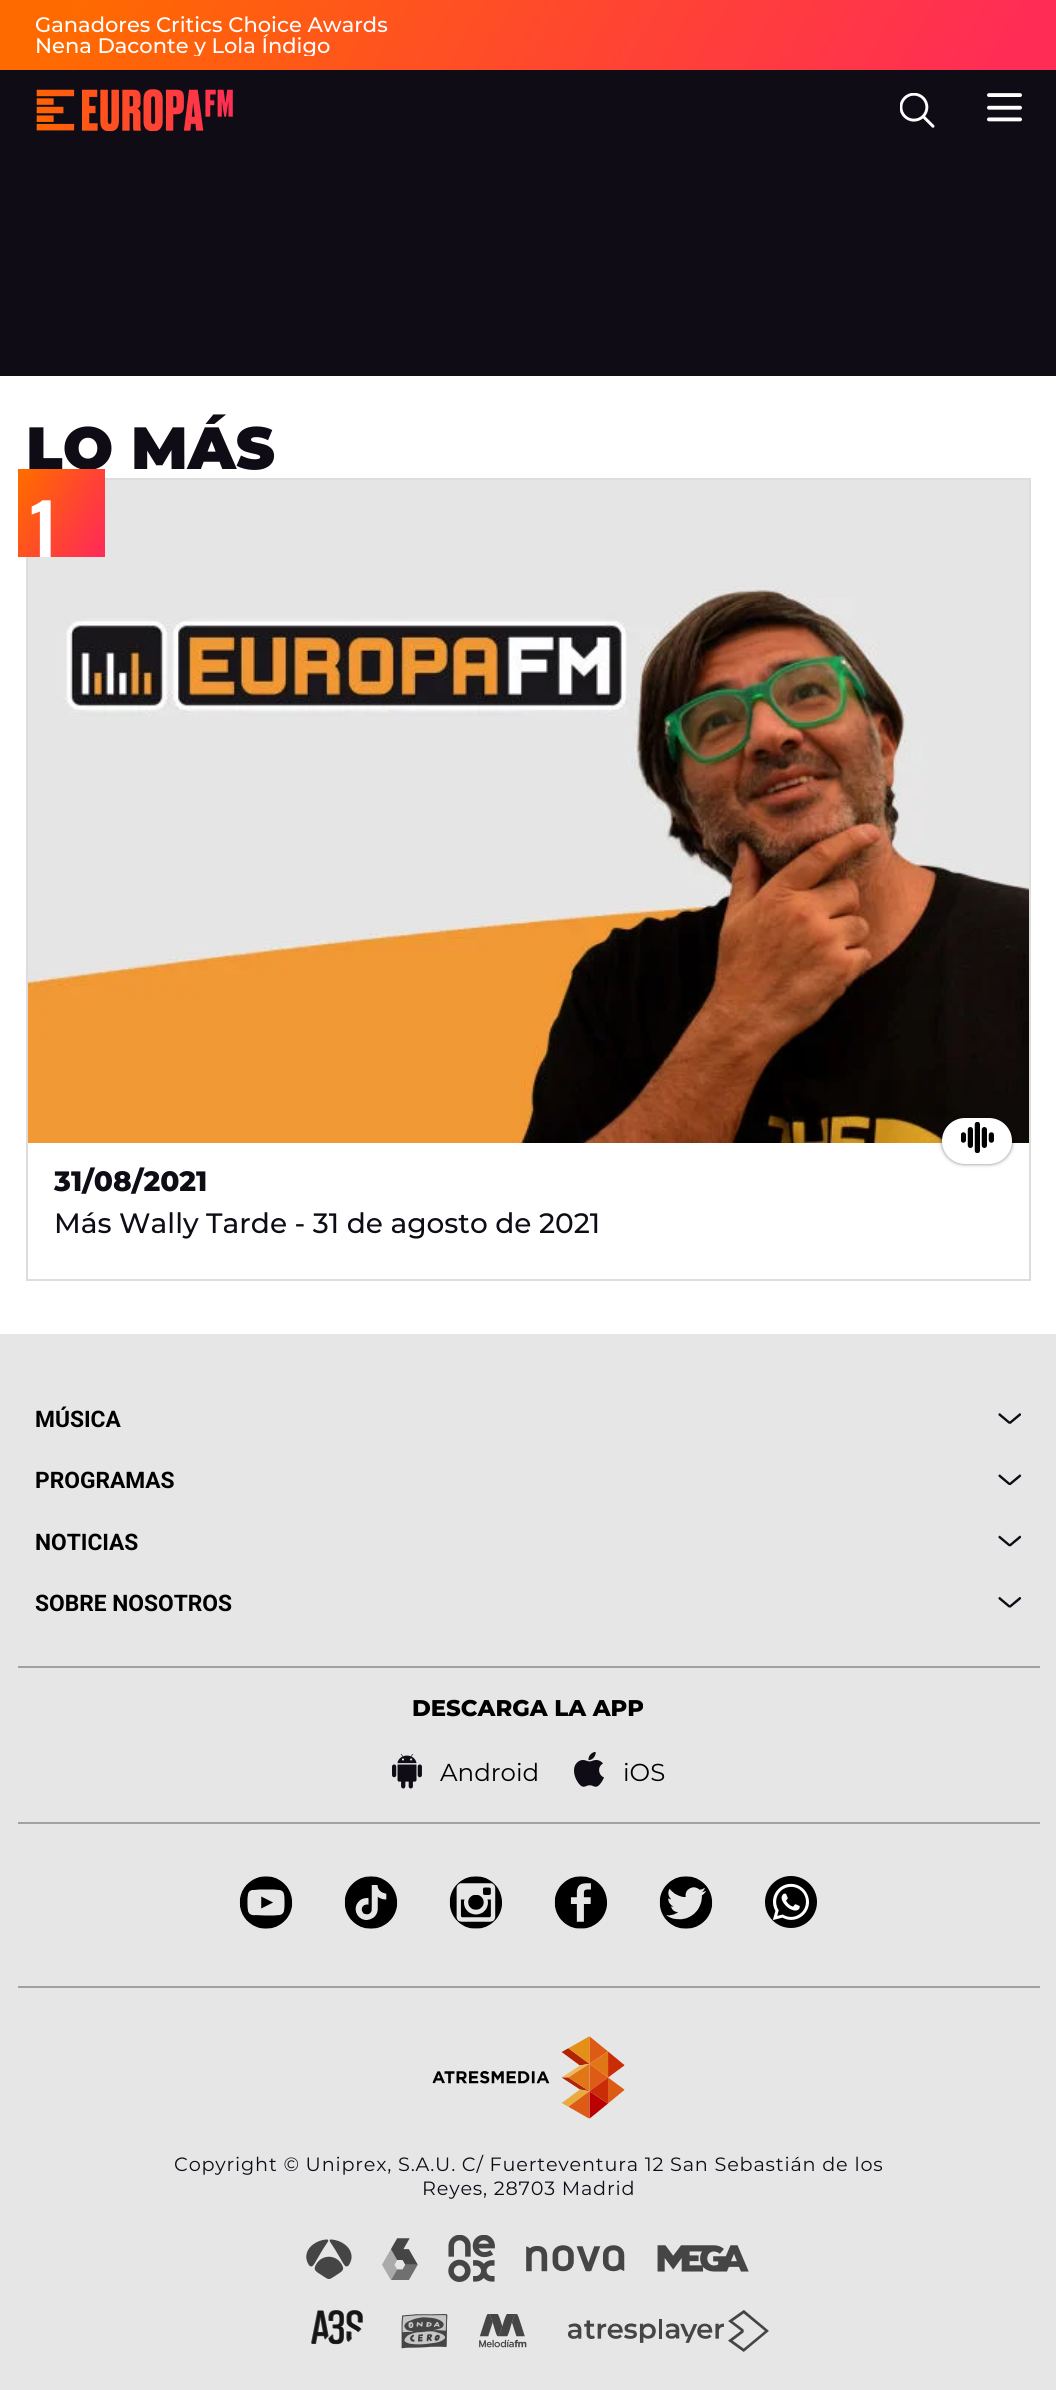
import math
import cairo

surface = cairo.ImageSurface(cairo.Format.RGB24, 1056, 2390)
ctx = cairo.Context(surface)
options = cairo.FontOptions()
options.set_hint_metrics(cairo.HintMetrics.OFF)
options.set_hint_style(cairo.HintStyle.NONE)
ctx.set_font_options(options)
ctx.set_miter_limit(4)


def ink(r, g, b):
    ctx.set_source_rgb(r / 255, g / 255, b / 255)


def write(x, y, s, family, size, color, bold=False, italic=False):
    ctx.select_font_face(family, cairo.FontSlant.ITALIC if italic else cairo.FontSlant.NORMAL, cairo.FontWeight.BOLD if bold else cairo.FontWeight.NORMAL)
    ctx.set_font_size(size)
    ink(*color)
    ctx.move_to(x, y)
    ctx.show_text(s)


def write_spaced(x, y, s, letter, word):
    ctx.move_to(x, y)
    for ch in s:
        ctx.show_text(ch)
        ctx.rel_move_to(letter + word * (ch == ' '), 0)


def block(x, y, w, h, *color):
    ink(*color)
    ctx.rectangle(x, y, w, h)
    ctx.fill()


def round_path(x, y, w, h, r):
    ctx.new_sub_path()
    for i, (u, v) in enumerate([(x + w - r, y + h - r), (x + r, y + h - r), (x + r, y + r), (x + w - r, y + r)]):
        ctx.arc(u, v, r, i * math.pi / 2, (i + 1) * math.pi / 2)
    ctx.close_path()


def blur_box(x, y, w, h, r, blur, alpha):
    ctx.push_group_with_content(cairo.Content.ALPHA)
    ctx.set_operator(cairo.Operator.SOURCE)
    for i in range(15, -16, -2):
        e = blur * i / 6
        if min(w, h) + 2 * e > 0:
            ctx.set_source_rgba(0, 0, 0, alpha * math.erfc((i - 1) / 8.5) / 2)
            round_path(x - e, y - e, w + 2 * e, h + 2 * e, max(0, min(r + e + blur * .6, min(w, h) / 2 + e)))
            ctx.fill()
    ctx.mask(ctx.pop_group())


def paste(path, x, y, w, h):
    ctx.save()
    ctx.set_source_surface(cairo.ImageSurface.create_from_png(path), x, y)
    ctx.rectangle(x, y, w, h)
    ctx.fill()
    ctx.restore()


s1 = dict(family="Montserrat Medium", size=21, color=(255, 255, 255))
s2 = dict(family="Montserrat Black", size=59.5, color=(15, 12, 22))
s3 = dict(family="Oswald SemiBold", size=70, color=(255, 255, 255))
s4 = dict(family="Montserrat ExtraBold", size=28, color=(15, 12, 22))
s5 = dict(family="Montserrat Medium", size=28, color=(15, 12, 22))
s6 = dict(family="Roboto", size=22.75, color=(0, 0, 0), bold=True)
s7 = dict(family="Montserrat ExtraBold", size=22.75, color=(0, 0, 0))
s8 = dict(family="Montserrat", size=24.5, color=(0, 0, 0))

ink(255, 255, 255)
ctx.paint()
gradient = cairo.LinearGradient(117, -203, 940, 273)
gradient.add_color_stop_rgba(0.07, 1, 0.416, 0, 1)
gradient.add_color_stop_rgba(0.61, 1, 0.259, 0.208, 1)
gradient.add_color_stop_rgba(0.94, 1, 0.176, 0.333, 1)
ctx.set_source(gradient)
ctx.rectangle(0, 0, 1056, 70)
ctx.fill()
write(35, 32, "Ganadores Critics Choice Awards", **s1)
ctx.save()
ctx.rectangle(9, 14, 1039, 42)
ctx.clip()
write(35, 53, "Nena Daconte y Lola Índigo", **s1)
ctx.restore()
block(0, 70, 1056, 306, 15, 12, 22)
paste("pic1.png", 36, 89, 197, 42)
paste("pic2.png", 900, 93, 35, 35)
paste("pic3.png", 987, 93, 35, 29)
write(26, 469, "LO MÁS", **s2)
ctx.rectangle(27, 479, 1003, 801)
ink(221, 221, 221)
ctx.stroke()
paste("pic4.png", 28, 480, 1001, 663)
gradient = cairo.LinearGradient(9, 483, 113, 543)
gradient.add_color_stop_rgba(0.07, 1, 0.416, 0, 1)
gradient.add_color_stop_rgba(0.61, 1, 0.259, 0.208, 1)
gradient.add_color_stop_rgba(0.94, 1, 0.176, 0.333, 1)
ctx.set_source(gradient)
ctx.rectangle(18, 469, 87, 88)
ctx.fill()
write(30, 557, "1", **s3)
ink(0, 0, 0)
blur_box(942, 1118, 70, 46, 23, 2, 0.5)
ink(255, 255, 255)
round_path(942, 1118, 70, 46, 23)
ctx.fill()
paste("pic5.png", 961, 1122, 33, 31)
write(54, 1191, "31/08/2021", **s4)
write(54, 1233, "Más Wally Tarde - 31 de agosto de 2021", **s5)
block(0, 1334, 1056, 1056, 230, 230, 231)
write(35, 1427, "MÚSICA", **s6)
paste("pic6.png", 998, 1413, 24, 11)
write(35, 1488, "PROGRAMAS", **s6)
paste("pic7.png", 998, 1474, 24, 12)
write(35, 1550, "NOTICIAS", **s6)
paste("pic8.png", 998, 1535, 24, 12)
write(35, 1611, "SOBRE NOSOTROS", **s6)
paste("pic9.png", 998, 1597, 24, 11)
block(18, 1666, 1022, 2, 161, 161, 162)
block(18, 1986, 1022, 2, 161, 161, 162)
write(412, 1716, "DESCARGA LA APP", **s7)
paste("pic10.png", 392, 1754, 30, 35)
write(440, 1781, "Android", **s8)
paste("pic11.png", 574, 1752, 30, 35)
write(623, 1781, "iOS", **s8)
block(18, 1822, 1022, 2, 161, 161, 162)
paste("pic12.png", 239, 1876, 54, 53)
paste("pic13.png", 344, 1876, 54, 53)
paste("pic14.png", 449, 1876, 53, 53)
paste("pic15.png", 554, 1876, 54, 53)
paste("pic16.png", 659, 1876, 54, 53)
paste("pic17.png", 765, 1876, 52, 52)
paste("pic18.png", 432, 2036, 193, 83)
ctx.set_font_size(19.25)
ink(15, 12, 22)
write_spaced(174, 2171, "Copyright © Uniprex, S.A.U. C/ Fuerteventura 12 San Sebastián de los", 0.8, 0)
write_spaced(422, 2195, "Reyes, 28703 Madrid", 0.8, 0)
paste("pic19.png", 306, 2239, 46, 40)
paste("pic20.png", 382, 2238, 36, 42)
paste("pic21.png", 448, 2235, 47, 47)
paste("pic22.png", 526, 2245, 99, 27)
paste("pic23.png", 657, 2245, 92, 27)
paste("pic24.png", 311, 2310, 52, 35)
paste("pic25.png", 401, 2314, 47, 35)
paste("pic26.png", 479, 2314, 48, 34)
paste("pic27.png", 567, 2310, 202, 42)
surface.write_to_png("screenshot.png")
